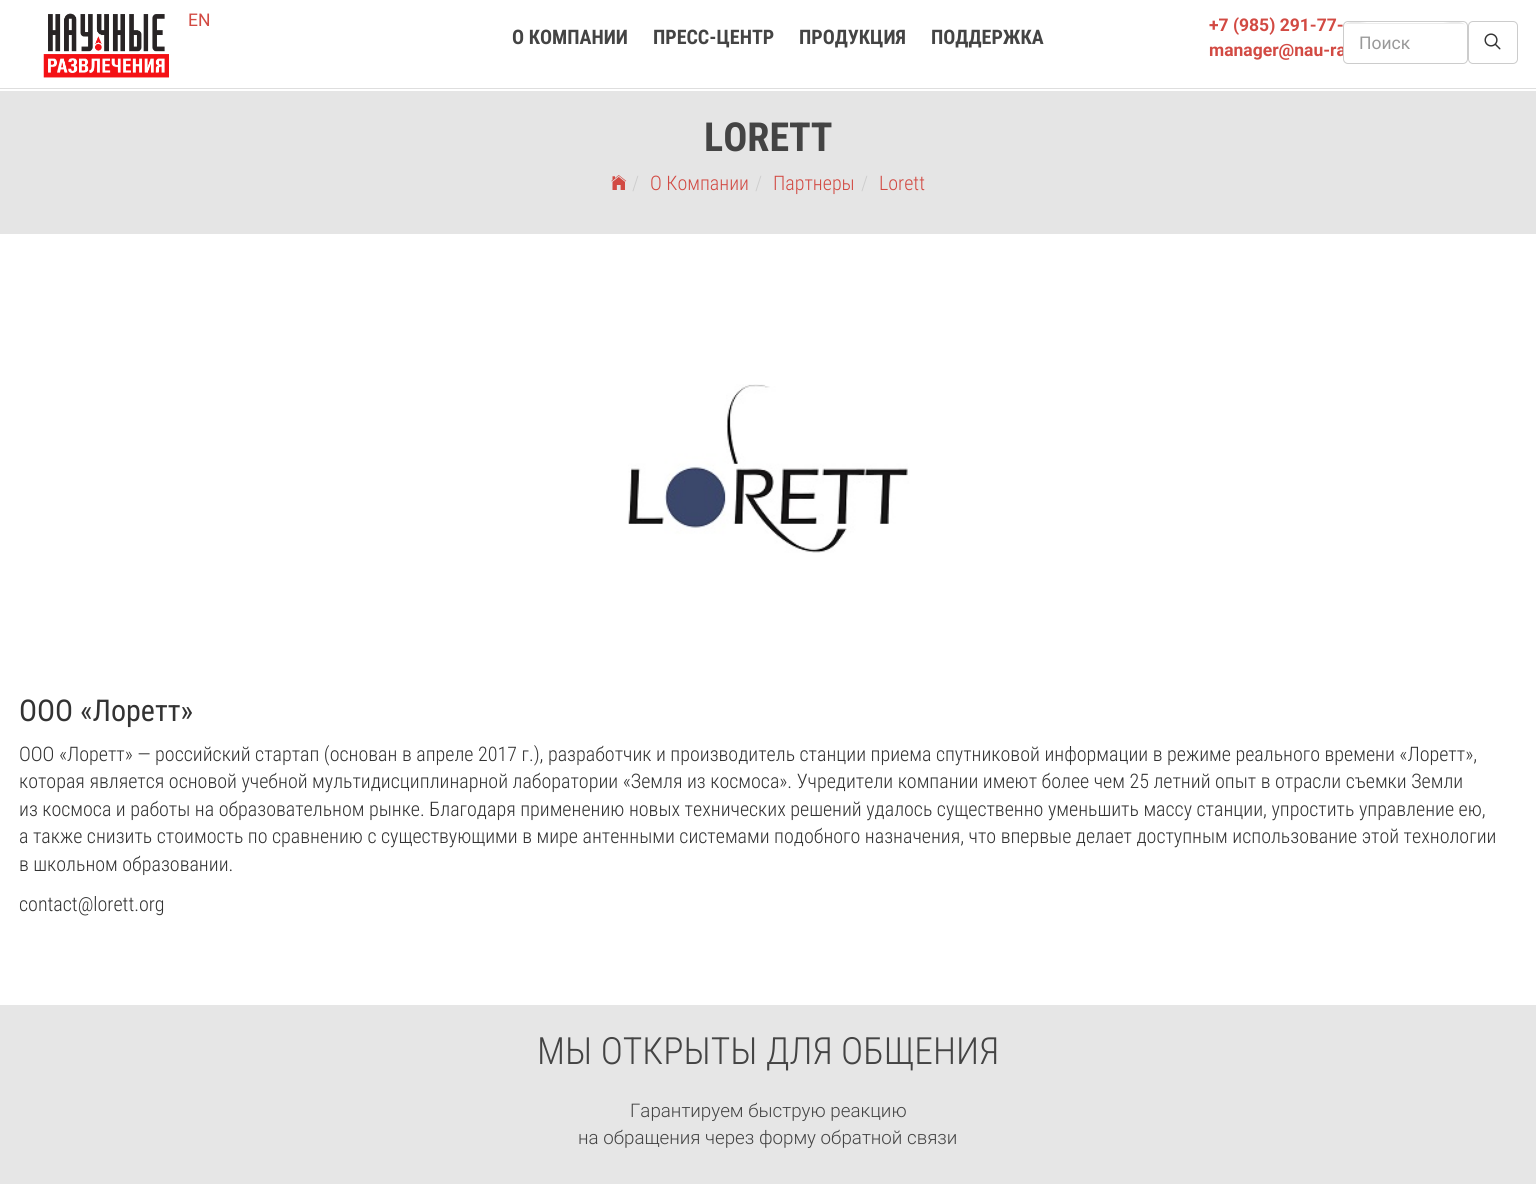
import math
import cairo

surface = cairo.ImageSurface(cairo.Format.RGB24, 1536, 1184)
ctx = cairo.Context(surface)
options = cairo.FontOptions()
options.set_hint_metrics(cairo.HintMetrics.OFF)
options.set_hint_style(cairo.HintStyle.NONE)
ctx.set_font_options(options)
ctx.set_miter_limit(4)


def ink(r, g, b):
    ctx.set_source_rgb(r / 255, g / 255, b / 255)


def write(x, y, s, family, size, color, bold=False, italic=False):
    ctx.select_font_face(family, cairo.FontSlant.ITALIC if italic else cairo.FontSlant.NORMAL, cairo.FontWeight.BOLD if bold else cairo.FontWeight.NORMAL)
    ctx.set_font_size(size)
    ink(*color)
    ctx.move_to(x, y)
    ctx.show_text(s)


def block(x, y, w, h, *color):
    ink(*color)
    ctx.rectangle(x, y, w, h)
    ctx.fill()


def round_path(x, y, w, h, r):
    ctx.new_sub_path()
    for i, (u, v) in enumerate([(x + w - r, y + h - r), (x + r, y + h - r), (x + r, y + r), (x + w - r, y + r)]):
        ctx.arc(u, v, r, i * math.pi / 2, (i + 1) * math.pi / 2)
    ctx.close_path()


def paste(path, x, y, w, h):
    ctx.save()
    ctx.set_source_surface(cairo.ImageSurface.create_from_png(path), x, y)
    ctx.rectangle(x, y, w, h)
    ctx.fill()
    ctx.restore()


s1 = dict(family="Roboto", size=17.5, color=(210, 74, 67))
s2 = dict(family="Roboto Condensed", size=20, color=(68, 68, 68), bold=True)
s3 = dict(family="Roboto", size=17.5, color=(210, 74, 67), bold=True)
s4 = dict(family="Roboto", size=17.5, color=(153, 153, 153))
s5 = dict(family="Roboto Condensed", size=40, color=(68, 68, 68), bold=True)
s6 = dict(family="Roboto Condensed Light", size=20, color=(204, 204, 204))
s7 = dict(family="Roboto Condensed Light", size=20, color=(210, 74, 67))
s8 = dict(family="Roboto Condensed", size=30, color=(51, 51, 51))
s9 = dict(family="Roboto Condensed Light", size=20, color=(51, 51, 51))
s10 = dict(family="Roboto Condensed Light", size=37.5, color=(68, 68, 68))
s11 = dict(family="Roboto Light", size=18.75, color=(68, 68, 68))

ink(255, 255, 255)
ctx.paint()
block(0, 88, 1536, 1, 222, 222, 222)
paste("pic1.png", 43, 13, 126, 65)
write(188, 26, "EN", **s1)
write(512, 44, "О КОМПАНИИ", **s2)
write(653, 44, "ПРЕСС-ЦЕНТР", **s2)
write(799, 44, "ПРОДУКЦИЯ", **s2)
write(931, 44, "ПОДДЕРЖКА", **s2)
write(1209, 31, "+7 (985) 291-77-", **s3)
write(1209, 56, "manager@nau-ra", **s3)
ink(255, 255, 255)
round_path(1343, 21, 125, 43, 5)
ctx.fill()
ink(236, 236, 236)
ctx.new_path()
ctx.move_to(1348, 24)
ctx.line_to(1462, 24)
ctx.curve_to(1465, 24, 1466, 25, 1466, 28)
ctx.curve_to(1466, 18, 1446, 23, 1443, 23)
ctx.line_to(1367, 23)
ctx.curve_to(1364, 23, 1344, 18, 1344, 28)
ctx.curve_to(1344, 25, 1345, 24, 1348, 24)
ctx.close_path()
ctx.fill()
round_path(1343.5, 21.5, 124, 42, 4.5)
ink(204, 204, 204)
ctx.set_line_width(1)
ctx.stroke()
write(1359, 49, "Поиск", **s4)
round_path(1468.5, 21.5, 49, 42, 4.5)
ink(204, 204, 204)
ctx.stroke()
paste("pic2.png", 1484, 33, 17, 17)
block(0, 91, 1536, 143, 229, 229, 229)
write(704, 151, "LORETT", **s5)
paste("pic3.png", 611, 175, 16, 15)
write(632, 190, "/", **s6)
write(650, 190, "О Компании", **s7)
write(755, 190, "/", **s6)
write(773, 190, "Партнеры", **s7)
write(861, 190, "/", **s6)
write(879, 190, "Lorett", **s7)
paste("pic4.png", 628, 384, 282, 169)
write(19, 721, "ООО «Лоретт»", **s8)
write(19, 761, "ООО «Лоретт» — российский стартап (основан в апреле 2017 г.), разработчик и производитель станции приема спутниковой информации в режиме реального времени «Лоретт»,", **s9)
write(19, 788, "которая является основой учебной мультидисциплинарной лаборатории «Земля из космоса». Учредители компании имеют более чем 25 летний опыт в отрасли съемки Земли", **s9)
write(19, 816, "из космоса и работы на образовательном рынке. Благодаря применению новых технических решений удалось существенно уменьшить массу станции, упростить управление ею,", **s9)
write(19, 843, "а также снизить стоимость по сравнению с существующими в мире антенными системами подобного назначения, что впервые делает доступным использование этой технологии", **s9)
write(19, 871, "в школьном образовании.", **s9)
write(19, 911, "contact@lorett.org", **s9)
block(0, 1005, 1536, 179, 230, 230, 230)
write(537, 1064, "МЫ ОТКРЫТЫ ДЛЯ ОБЩЕНИЯ", **s10)
write(630, 1117, "Гарантируем быструю реакцию", **s11)
write(578, 1144, "на обращения через форму обратной связи", **s11)
surface.write_to_png("screenshot.png")
